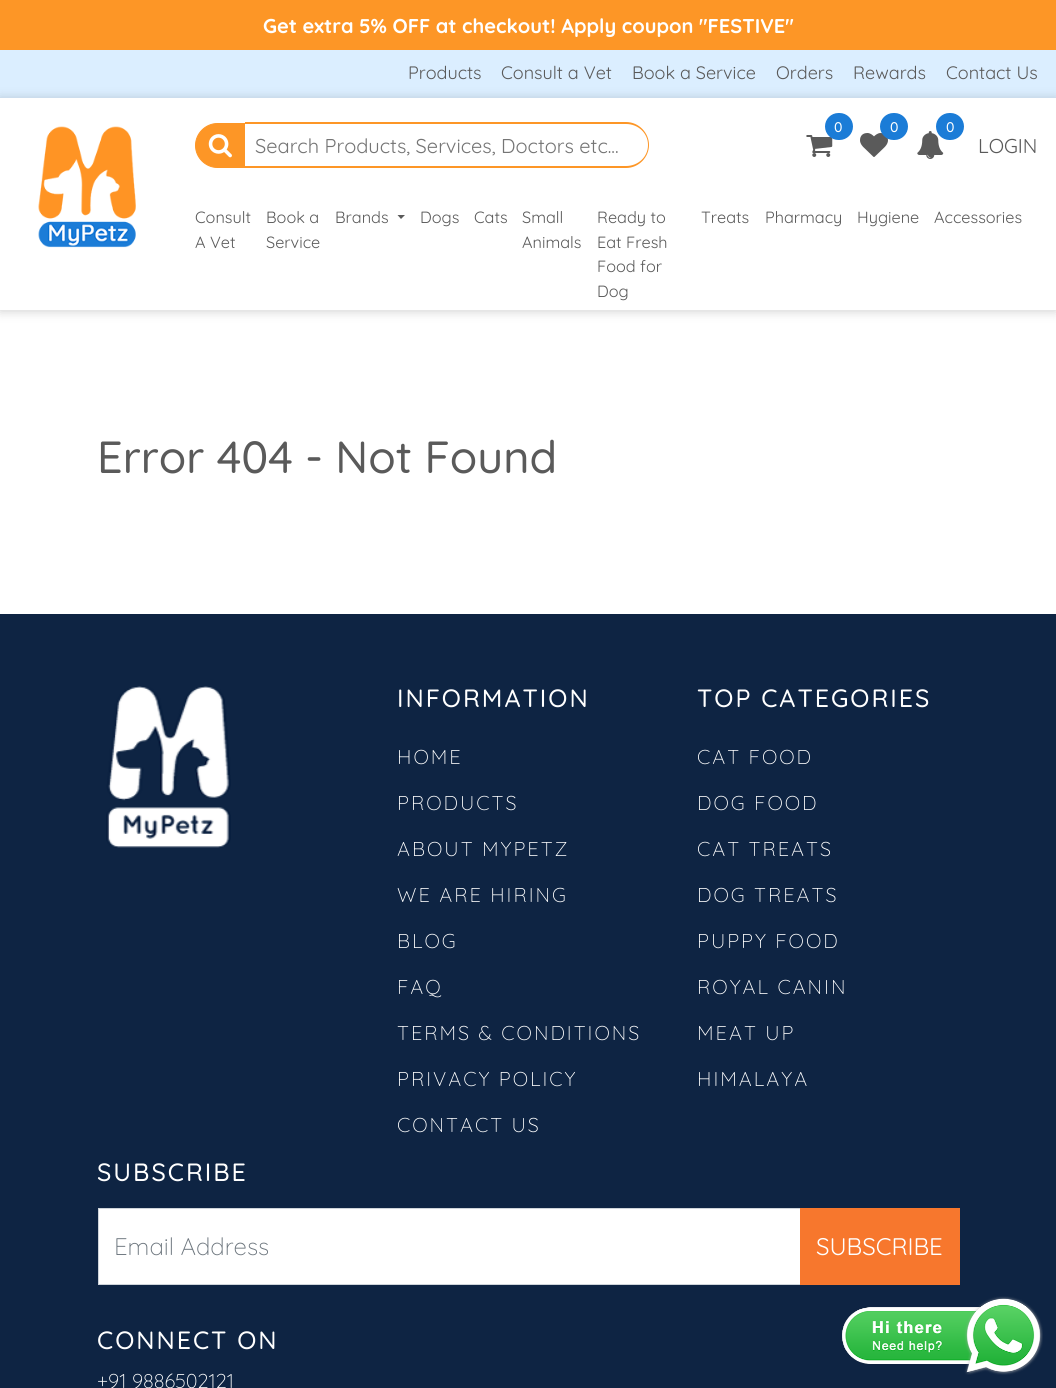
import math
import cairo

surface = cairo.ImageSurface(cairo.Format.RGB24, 1056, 1388)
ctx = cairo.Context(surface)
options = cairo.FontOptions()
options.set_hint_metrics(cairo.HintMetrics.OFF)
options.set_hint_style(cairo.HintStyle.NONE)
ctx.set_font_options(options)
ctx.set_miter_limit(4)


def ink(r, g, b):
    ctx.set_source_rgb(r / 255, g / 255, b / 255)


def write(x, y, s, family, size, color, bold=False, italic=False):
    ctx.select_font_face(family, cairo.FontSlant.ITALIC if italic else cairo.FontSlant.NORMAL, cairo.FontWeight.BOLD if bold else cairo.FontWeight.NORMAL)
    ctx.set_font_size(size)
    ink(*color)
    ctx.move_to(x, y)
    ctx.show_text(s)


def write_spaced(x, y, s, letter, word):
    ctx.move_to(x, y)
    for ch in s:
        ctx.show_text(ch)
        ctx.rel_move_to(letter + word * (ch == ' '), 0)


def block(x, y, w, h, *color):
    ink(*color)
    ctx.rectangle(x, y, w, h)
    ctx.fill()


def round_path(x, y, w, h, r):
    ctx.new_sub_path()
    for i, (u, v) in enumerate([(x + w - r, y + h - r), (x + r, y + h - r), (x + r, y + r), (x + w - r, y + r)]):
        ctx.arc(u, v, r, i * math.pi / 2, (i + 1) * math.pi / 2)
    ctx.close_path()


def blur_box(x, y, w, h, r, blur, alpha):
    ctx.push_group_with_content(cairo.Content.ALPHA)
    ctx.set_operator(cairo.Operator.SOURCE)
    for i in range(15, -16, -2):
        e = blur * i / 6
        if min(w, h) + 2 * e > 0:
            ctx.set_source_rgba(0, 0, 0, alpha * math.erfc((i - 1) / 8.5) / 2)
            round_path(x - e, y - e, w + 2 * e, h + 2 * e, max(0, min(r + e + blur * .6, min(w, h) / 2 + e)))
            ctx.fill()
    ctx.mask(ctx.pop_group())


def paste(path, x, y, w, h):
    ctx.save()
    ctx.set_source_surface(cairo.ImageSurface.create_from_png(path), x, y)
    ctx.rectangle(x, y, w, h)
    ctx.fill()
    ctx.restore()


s1 = dict(family="Quicksand", size=20, color=(255, 255, 255), bold=True)
s2 = dict(family="Quicksand", size=18, color=(90, 90, 90))
s3 = dict(family="Quicksand", size=20, color=(117, 117, 117))
s4 = dict(family="Quicksand Medium", size=14, color=(255, 255, 255))
s5 = dict(family="Quicksand", size=20, color=(90, 90, 90))
s6 = dict(family="Quicksand", size=16.25, color=(90, 90, 90))
s7 = dict(family="Quicksand Medium", size=45, color=(90, 90, 90))
s8 = dict(family="Quicksand Light", size=24, color=(108, 117, 125))
s9 = dict(family="Quicksand", size=24, color=(255, 255, 255))
s10 = dict(family="Quicksand Light", size=20, color=(255, 255, 255))

ink(255, 255, 255)
ctx.paint()
block(0, 0, 1056, 50, 253, 150, 38)
write(263, 33, "Get extra 5% OFF at checkout! Apply coupon \"FESTIVE\"", **s1)
block(0, 50, 1056, 48, 219, 238, 255)
write(408, 79, "Products", **s2)
write(501, 79, "Consult a Vet", **s2)
write(632, 79, "Book a Service", **s2)
write(776, 79, "Orders", **s2)
write(853, 79, "Rewards", **s2)
write(946, 79, "Contact Us", **s2)
ctx.save()
ctx.set_fill_rule(cairo.FillRule.EVEN_ODD)
ctx.new_path()
ctx.move_to(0, 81)
ctx.line_to(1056, 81)
ctx.line_to(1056, 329)
ctx.line_to(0, 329)
ctx.close_path()
ctx.move_to(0, 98)
ctx.line_to(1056, 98)
ctx.line_to(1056, 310)
ctx.line_to(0, 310)
ctx.close_path()
ctx.clip()
ink(0, 0, 0)
blur_box(0, 99, 1056, 212, 0, 5.5, 0.2)
ctx.restore()
paste("pic1.png", 38, 126, 98, 122)
ink(253, 150, 38)
ctx.new_path()
ctx.move_to(217.5, 123.5)
ctx.line_to(244.5, 123.5)
ctx.line_to(244.5, 167.5)
ctx.line_to(217.5, 167.5)
ctx.curve_to(205.5, 167.5, 195.5, 157.5, 195.5, 145.5)
ctx.curve_to(195.5, 133.5, 205.5, 123.5, 217.5, 123.5)
ctx.close_path()
ctx.fill_preserve()
ctx.set_line_width(1)
ctx.stroke()
paste("pic2.png", 208, 134, 24, 24)
ctx.set_fill_rule(cairo.FillRule.EVEN_ODD)
ctx.new_path()
ctx.move_to(245, 122)
ctx.line_to(626, 122)
ctx.curve_to(639, 122, 649, 133, 649, 145)
ctx.curve_to(649, 157, 639, 168, 626, 168)
ctx.line_to(245, 168)
ctx.close_path()
ctx.move_to(245, 124)
ctx.line_to(626, 124)
ctx.curve_to(638, 124, 648, 133, 648, 145)
ctx.curve_to(648, 157, 638, 166, 626, 166)
ctx.line_to(245, 166)
ctx.close_path()
ctx.fill()
write(255, 153, "Search Products, Services, Doctors etc...", **s3)
paste("pic3.png", 806, 135, 27, 22)
ink(27, 124, 215)
round_path(825, 113, 28, 27, 13.5)
ctx.fill()
write(834, 132, "0", **s4)
paste("pic4.png", 860, 133, 28, 24)
ink(27, 124, 215)
round_path(880, 113, 28, 27, 13.5)
ctx.fill()
write(890, 132, "0", **s4)
paste("pic5.png", 917, 131, 27, 28)
ink(27, 124, 215)
round_path(936, 113, 28, 27, 13.5)
ctx.fill()
write(946, 132, "0", **s4)
write(978, 153, "LOGIN", **s5)
write(195, 223, "Consult", **s6)
write(195, 248, "A Vet", **s6)
write(266, 223, "Book a", **s6)
write(266, 248, "Service", **s6)
write(335, 223, "Brands", **s6)
ctx.set_fill_rule(cairo.FillRule.WINDING)
ctx.new_path()
ctx.move_to(397.5, 215)
ctx.line_to(405, 215)
ctx.line_to(401, 219)
ctx.close_path()
ctx.fill()
write(420, 223, "Dogs", **s6)
write(474, 223, "Cats", **s6)
write(522, 223, "Small", **s6)
write(522, 248, "Animals", **s6)
write(597, 223, "Ready to", **s6)
write(597, 248, "Eat Fresh", **s6)
write(597, 272, "Food for", **s6)
write(597, 297, "Dog", **s6)
write(701, 223, "Treats", **s6)
write(765, 223, "Pharmacy", **s6)
write(857, 223, "Hygiene", **s6)
write(934, 223, "Accessories", **s6)
write(97, 473, "Error 404 - Not Found", **s7)
block(0, 614, 1056, 774, 14, 36, 67)
paste("pic6.png", 106, 686, 125, 162)
ctx.set_font_size(25)
ink(255, 255, 255)
write_spaced(397, 707, "INFORMATION", 2, 0)
ctx.select_font_face("Quicksand Light")
ctx.set_font_size(20)
write_spaced(397, 764, "HOME", 2, 0)
write_spaced(397, 810, "PRODUCTS", 2, 0)
write_spaced(397, 856, "ABOUT MYPETZ", 2, 0)
write_spaced(397, 902, "WE ARE HIRING", 2, 0)
write_spaced(397, 948, "BLOG", 2, 0)
write_spaced(397, 994, "FAQ", 2, 0)
write_spaced(397, 1040, "TERMS & CONDITIONS", 2, 0)
write_spaced(397, 1086, "PRIVACY POLICY", 2, 0)
write_spaced(397, 1132, "CONTACT US", 2, 0)
ctx.select_font_face("Quicksand Medium")
ctx.set_font_size(25)
write_spaced(697, 707, "TOP CATEGORIES", 2, 0)
ctx.select_font_face("Quicksand Light")
ctx.set_font_size(20)
write_spaced(697, 764, "CAT FOOD", 2, 0)
write_spaced(697, 810, "DOG FOOD", 2, 0)
write_spaced(697, 856, "CAT TREATS", 2, 0)
write_spaced(697, 902, "DOG TREATS", 2, 0)
write_spaced(697, 948, "PUPPY FOOD", 2, 0)
write_spaced(697, 994, "ROYAL CANIN", 2, 0)
write_spaced(697, 1040, "MEAT UP", 2, 0)
write_spaced(697, 1086, "HIMALAYA", 2, 0)
ctx.select_font_face("Quicksand Medium")
ctx.set_font_size(25)
write_spaced(97, 1181, "SUBSCRIBE", 2, 0)
ctx.rectangle(98.5, 1208.5, 702, 76)
ctx.fill_preserve()
ink(206, 212, 218)
ctx.stroke()
write(114, 1255, "Email Address", **s8)
block(800, 1208, 160, 77, 247, 119, 45)
write(816, 1255, "SUBSCRIBE", **s9)
ctx.select_font_face("Quicksand Medium")
ctx.set_font_size(25)
write_spaced(97, 1349, "CONNECT ON", 2, 0)
write(97, 1388, "+91 9886502121", **s10)
paste("pic7.png", 842, 1296, 201, 79)
surface.write_to_png("screenshot.png")
